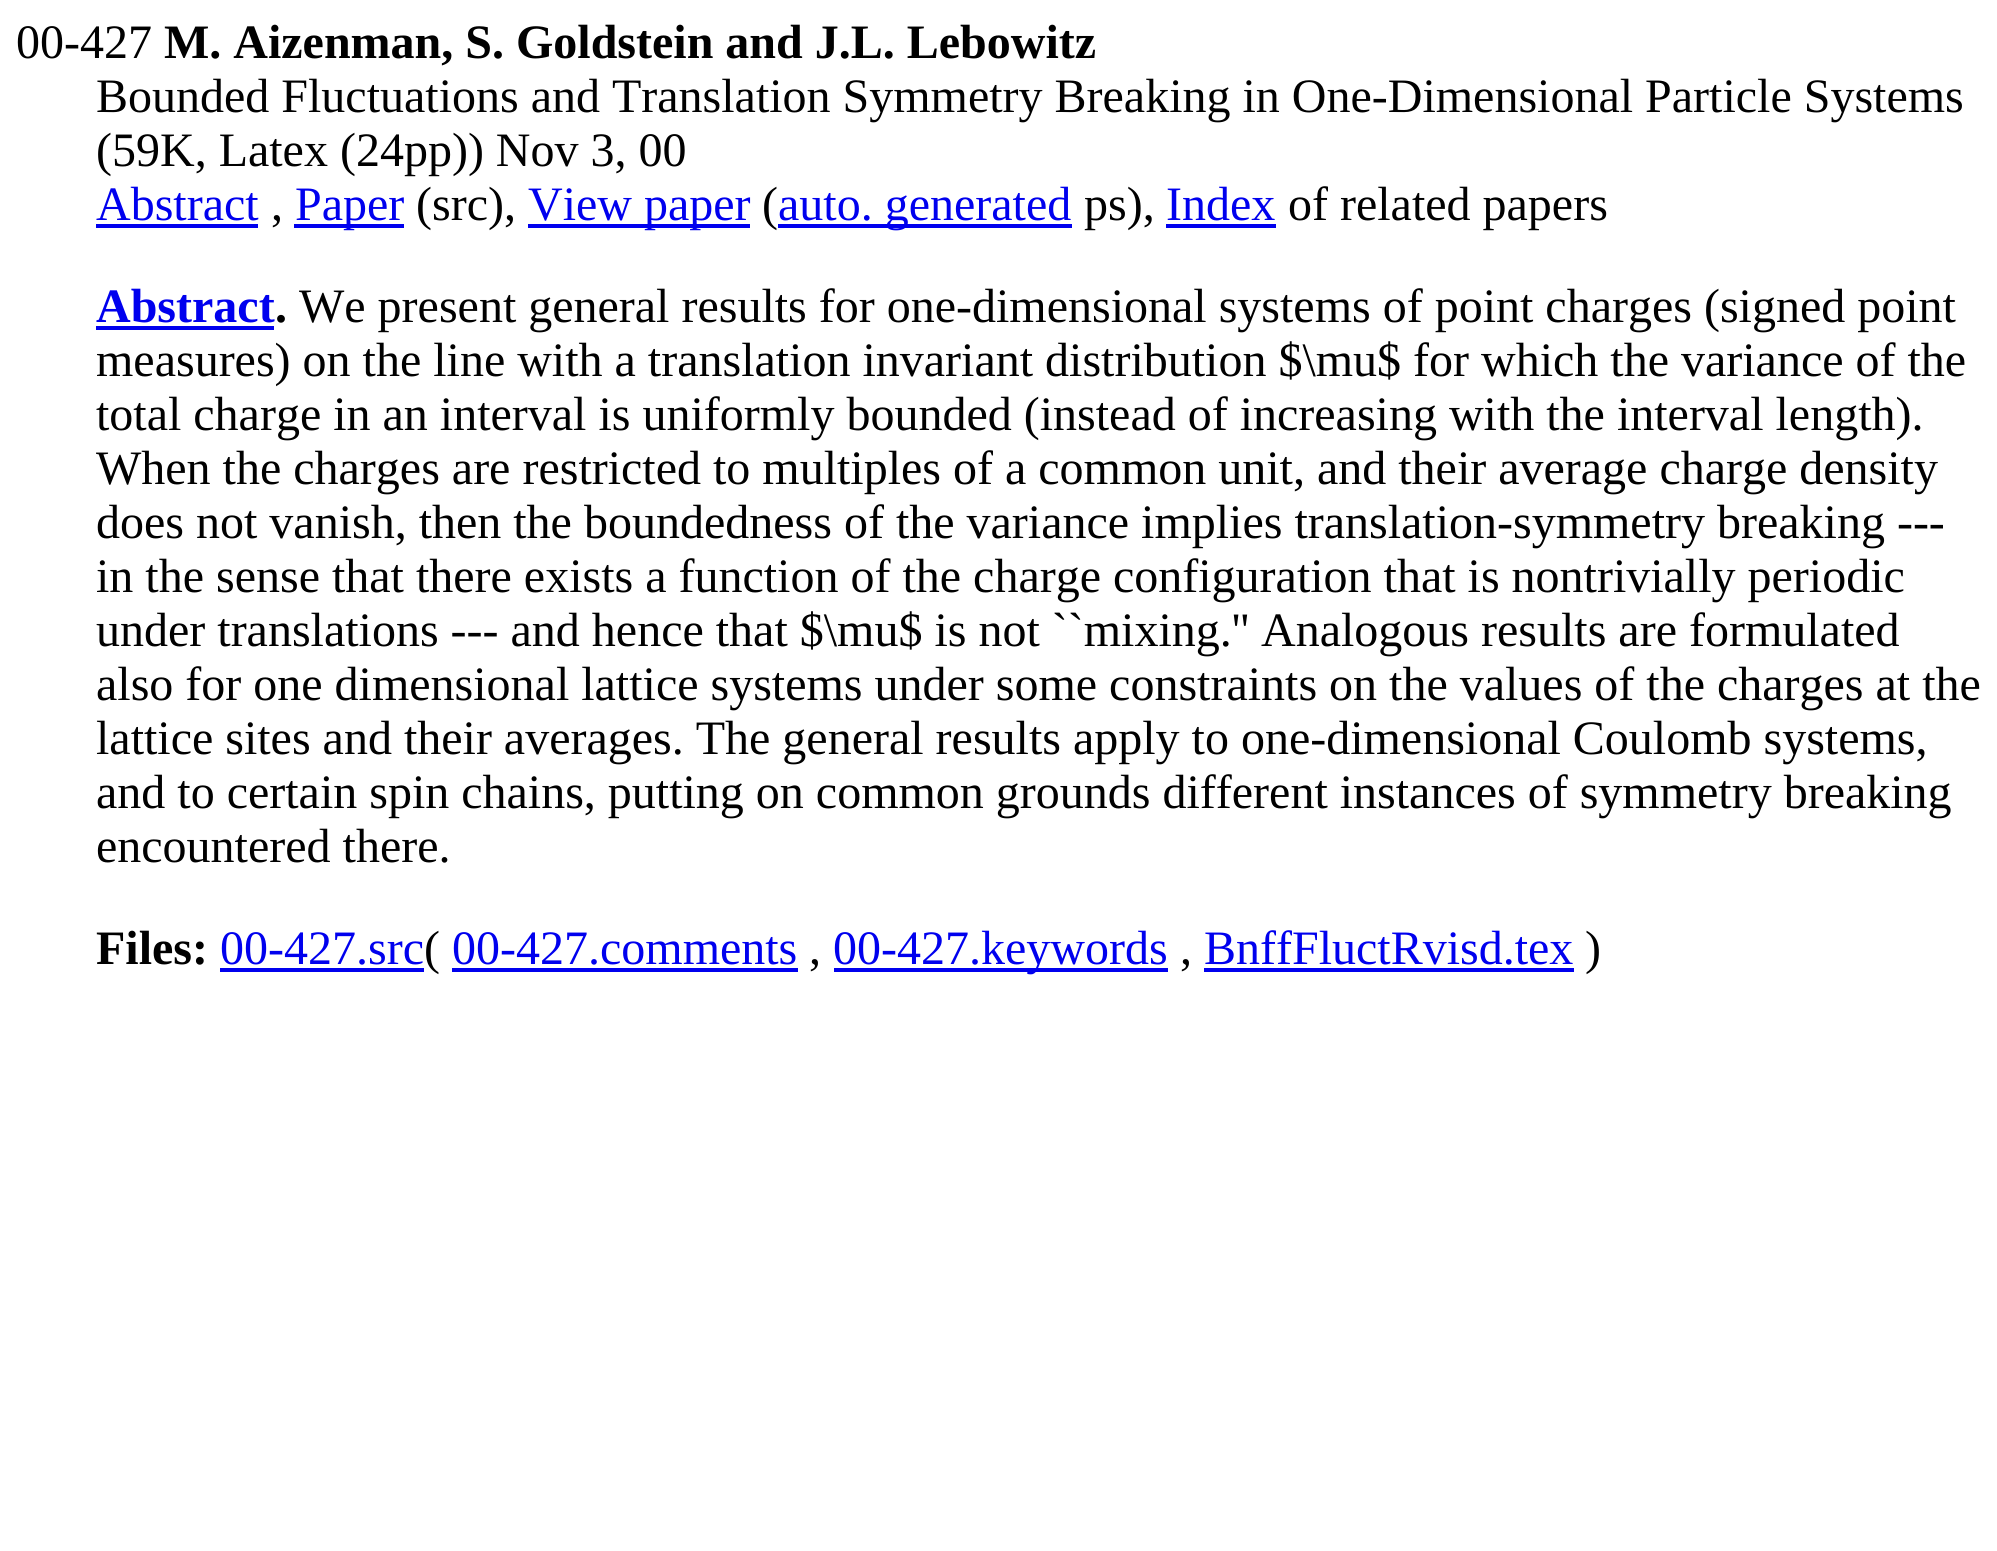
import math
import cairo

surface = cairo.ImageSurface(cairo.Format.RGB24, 1997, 1551)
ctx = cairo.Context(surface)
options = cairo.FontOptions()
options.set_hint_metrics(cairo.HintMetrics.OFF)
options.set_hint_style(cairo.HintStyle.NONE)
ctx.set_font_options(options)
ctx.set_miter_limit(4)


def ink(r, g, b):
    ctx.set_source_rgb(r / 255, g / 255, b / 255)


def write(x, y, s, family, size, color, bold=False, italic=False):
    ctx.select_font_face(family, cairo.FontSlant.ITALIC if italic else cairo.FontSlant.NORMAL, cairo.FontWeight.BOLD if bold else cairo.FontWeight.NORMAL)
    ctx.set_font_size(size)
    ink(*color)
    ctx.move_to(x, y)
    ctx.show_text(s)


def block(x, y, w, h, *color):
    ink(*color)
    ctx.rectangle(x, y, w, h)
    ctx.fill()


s1 = dict(family="Liberation Serif", size=48, color=(0, 0, 0))
s2 = dict(family="Liberation Serif", size=48, color=(0, 0, 0), bold=True)
s3 = dict(family="Liberation Serif", size=48, color=(0, 0, 238))
s4 = dict(family="Liberation Serif", size=48, color=(0, 0, 238), bold=True)

ink(255, 255, 255)
ctx.paint()
write(16, 58, "00-427", **s1)
write(164, 58, "M. Aizenman, S. Goldstein and J.L. Lebowitz", **s2)
write(96, 112, "Bounded Fluctuations and Translation Symmetry Breaking in One-Dimensional Particle Systems", **s1)
write(96, 166, "(59K, Latex (24pp)) Nov 3, 00", **s1)
write(96, 220, "Abstract", **s3)
block(96, 224, 162, 4, 0, 0, 238)
write(271, 220, ",", **s1)
block(294, 224, 110, 4, 0, 0, 238)
write(295, 220, "Paper", **s3)
write(416, 220, "(src),", **s1)
block(528, 224, 222, 4, 0, 0, 238)
write(528, 220, "View paper", **s3)
write(762, 220, "(", **s1)
block(778, 224, 294, 4, 0, 0, 238)
write(778, 220, "auto. generated", **s3)
write(1084, 220, "ps),", **s1)
write(1166, 220, "Index", **s3)
block(1166, 224, 110, 4, 0, 0, 238)
write(1288, 220, "of related papers", **s1)
write(96, 322, "Abstract", **s4)
write(275, 322, ".", **s2)
block(96, 326, 178, 4, 0, 0, 238)
write(299, 322, "We present general results for one-dimensional systems of point charges (signed point", **s1)
write(96, 376, "measures) on the line with a translation invariant distribution $\\mu$ for which the variance of the", **s1)
write(96, 430, "total charge in an interval is uniformly bounded (instead of increasing with the interval length).", **s1)
write(96, 484, "When the charges are restricted to multiples of a common unit, and their average charge density", **s1)
write(96, 538, "does not vanish, then the boundedness of the variance implies translation-symmetry breaking ---", **s1)
write(96, 592, "in the sense that there exists a function of the charge configuration that is nontrivially periodic", **s1)
write(96, 646, "under translations --- and hence that $\\mu$ is not ``mixing.'' Analogous results are formulated", **s1)
write(96, 700, "also for one dimensional lattice systems under some constraints on the values of the charges at the", **s1)
write(96, 754, "lattice sites and their averages. The general results apply to one-dimensional Coulomb systems,", **s1)
write(96, 808, "and to certain spin chains, putting on common grounds different instances of symmetry breaking", **s1)
write(96, 862, "encountered there.", **s1)
write(96, 964, "Files:", **s2)
write(220, 964, "00-427.src", **s3)
block(220, 968, 204, 4, 0, 0, 238)
write(424, 964, "(", **s1)
write(452, 964, "00-427.comments", **s3)
block(452, 968, 346, 4, 0, 0, 238)
write(809, 964, ",", **s1)
block(834, 968, 334, 4, 0, 0, 238)
write(833, 964, "00-427.keywords", **s3)
write(1180, 964, ",", **s1)
write(1204, 964, "BnffFluctRvisd.tex", **s3)
block(1204, 968, 370, 4, 0, 0, 238)
write(1585, 964, ")", **s1)
surface.write_to_png("screenshot.png")
